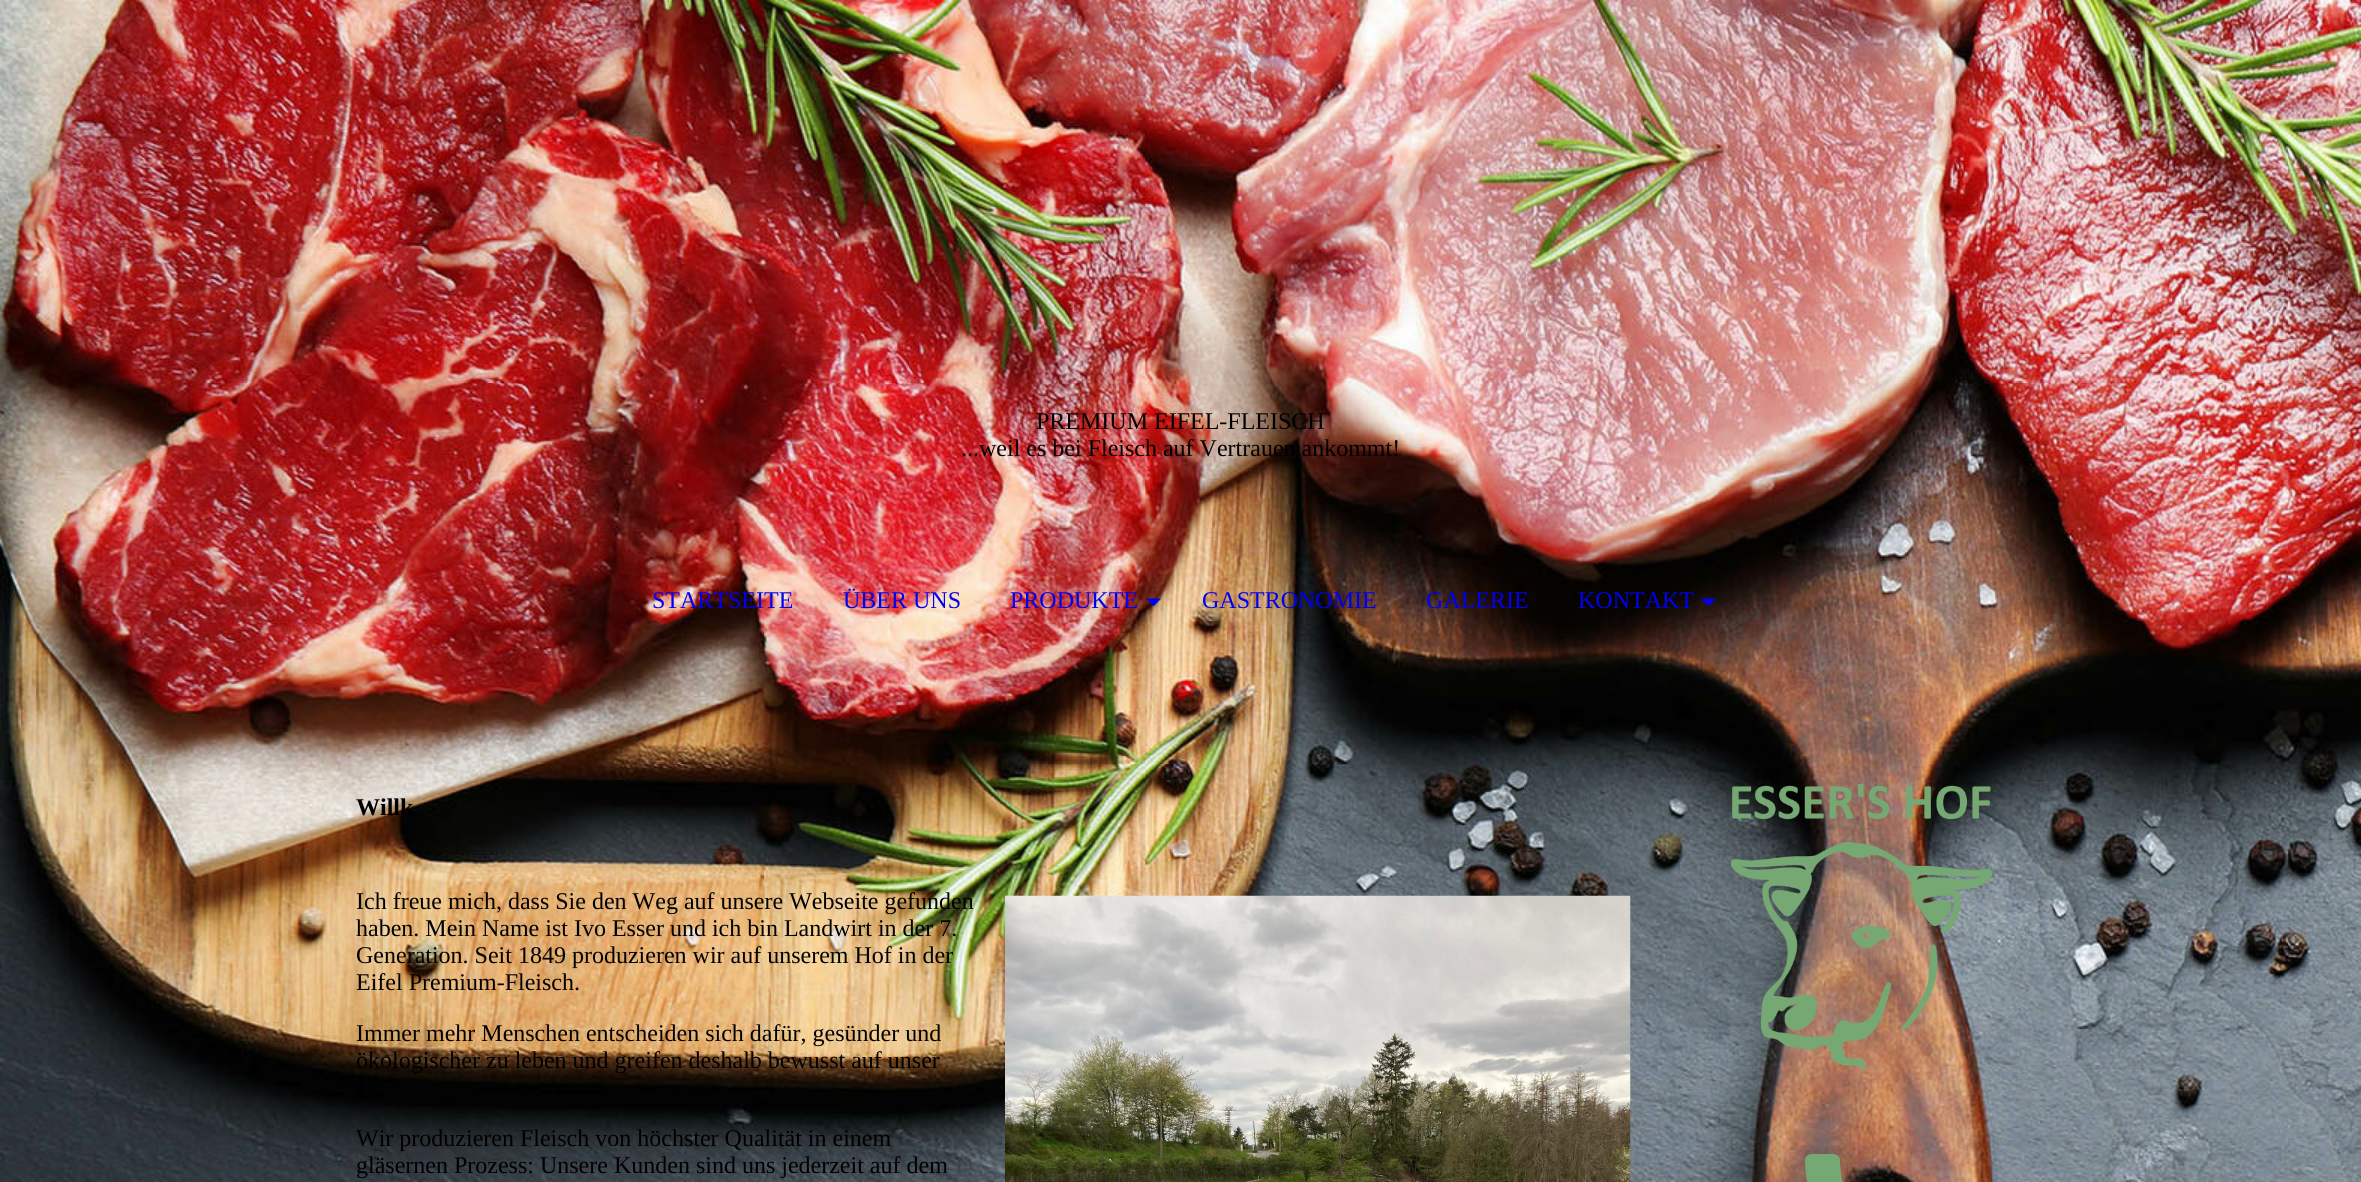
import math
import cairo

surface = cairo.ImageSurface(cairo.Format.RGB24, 2361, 1182)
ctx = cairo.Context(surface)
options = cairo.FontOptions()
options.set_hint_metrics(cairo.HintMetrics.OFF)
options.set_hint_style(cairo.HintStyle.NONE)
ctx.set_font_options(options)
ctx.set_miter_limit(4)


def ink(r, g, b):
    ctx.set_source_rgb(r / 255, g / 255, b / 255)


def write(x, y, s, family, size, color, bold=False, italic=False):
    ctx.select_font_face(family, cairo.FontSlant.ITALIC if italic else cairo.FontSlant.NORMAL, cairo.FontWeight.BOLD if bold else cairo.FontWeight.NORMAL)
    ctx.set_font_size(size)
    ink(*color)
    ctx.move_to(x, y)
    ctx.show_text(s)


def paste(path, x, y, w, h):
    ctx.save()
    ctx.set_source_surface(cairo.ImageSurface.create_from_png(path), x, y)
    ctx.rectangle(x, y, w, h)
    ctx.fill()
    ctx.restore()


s1 = dict(family="Liberation Serif", size=24, color=(0, 0, 0))
s2 = dict(family="Liberation Serif", size=24, color=(0, 0, 238))
s3 = dict(family="Liberation Serif", size=24, color=(0, 0, 0), bold=True)

ink(255, 255, 255)
ctx.paint()
paste("pic1.png", 0, 0, 2361, 1182)
write(1036, 429, "PREMIUM EIFEL-FLEISCH", **s1)
write(961, 456, "...weil es bei Fleisch auf Vertrauen ankommt!", **s1)
write(652, 608, "STARTSEITE", **s2)
write(843, 608, "ÜBER UNS", **s2)
write(1010, 608, "PRODUKTE", **s2)
ctx.new_path()
ctx.move_to(1146, 598.5)
ctx.line_to(1161, 598.5)
ctx.line_to(1153.5, 606)
ctx.close_path()
ctx.fill()
write(1202, 608, "GASTRONOMIE", **s2)
write(1426, 608, "GALERIE", **s2)
write(1578, 608, "KONTAKT", **s2)
ctx.new_path()
ctx.move_to(1701, 598.5)
ctx.line_to(1716, 598.5)
ctx.line_to(1708.5, 606)
ctx.close_path()
ctx.fill()
write(356, 815, "Willk", **s3)
write(356, 909, "Ich freue mich, dass Sie den Weg auf unsere Webseite gefunden", **s1)
write(356, 936, "haben. Mein Name ist Ivo Esser und ich bin Landwirt in der 7.", **s1)
write(356, 963, "Generation. Seit 1849 produzieren wir auf unserem Hof in der", **s1)
write(356, 990, "Eifel Premium-Fleisch.", **s1)
write(356, 1041, "Immer mehr Menschen entscheiden sich dafür, gesünder und", **s1)
write(356, 1068, "ökologischer zu leben und greifen deshalb bewusst auf unser", **s1)
write(356, 1146, "Wir produzieren Fleisch von höchster Qualität in einem", **s1)
write(356, 1173, "gläsernen Prozess: Unsere Kunden sind uns jederzeit auf dem", **s1)
paste("pic2.png", 1005, 895, 626, 287)
paste("pic3.png", 1730, 783, 263, 287)
ink(117, 168, 114)
ctx.new_path()
ctx.move_to(1828, 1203)
ctx.curve_to(1837, 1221, 1851, 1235, 1869, 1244)
ctx.line_to(1883, 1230)
ctx.curve_to(1884, 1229, 1887, 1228, 1889, 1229)
ctx.curve_to(1896, 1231, 1904, 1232, 1912, 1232)
ctx.curve_to(1915, 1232, 1918, 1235, 1918, 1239)
ctx.line_to(1918, 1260)
ctx.curve_to(1918, 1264, 1915, 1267, 1912, 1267)
ctx.curve_to(1853, 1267, 1805, 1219, 1805, 1160)
ctx.curve_to(1805, 1157, 1808, 1154, 1812, 1154)
ctx.line_to(1833, 1154)
ctx.curve_to(1837, 1154, 1840, 1157, 1840, 1160)
ctx.curve_to(1840, 1168, 1841, 1176, 1843, 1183)
ctx.curve_to(1844, 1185, 1843, 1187, 1842, 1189)
ctx.close_path()
ctx.fill()
surface.write_to_png("screenshot.png")
